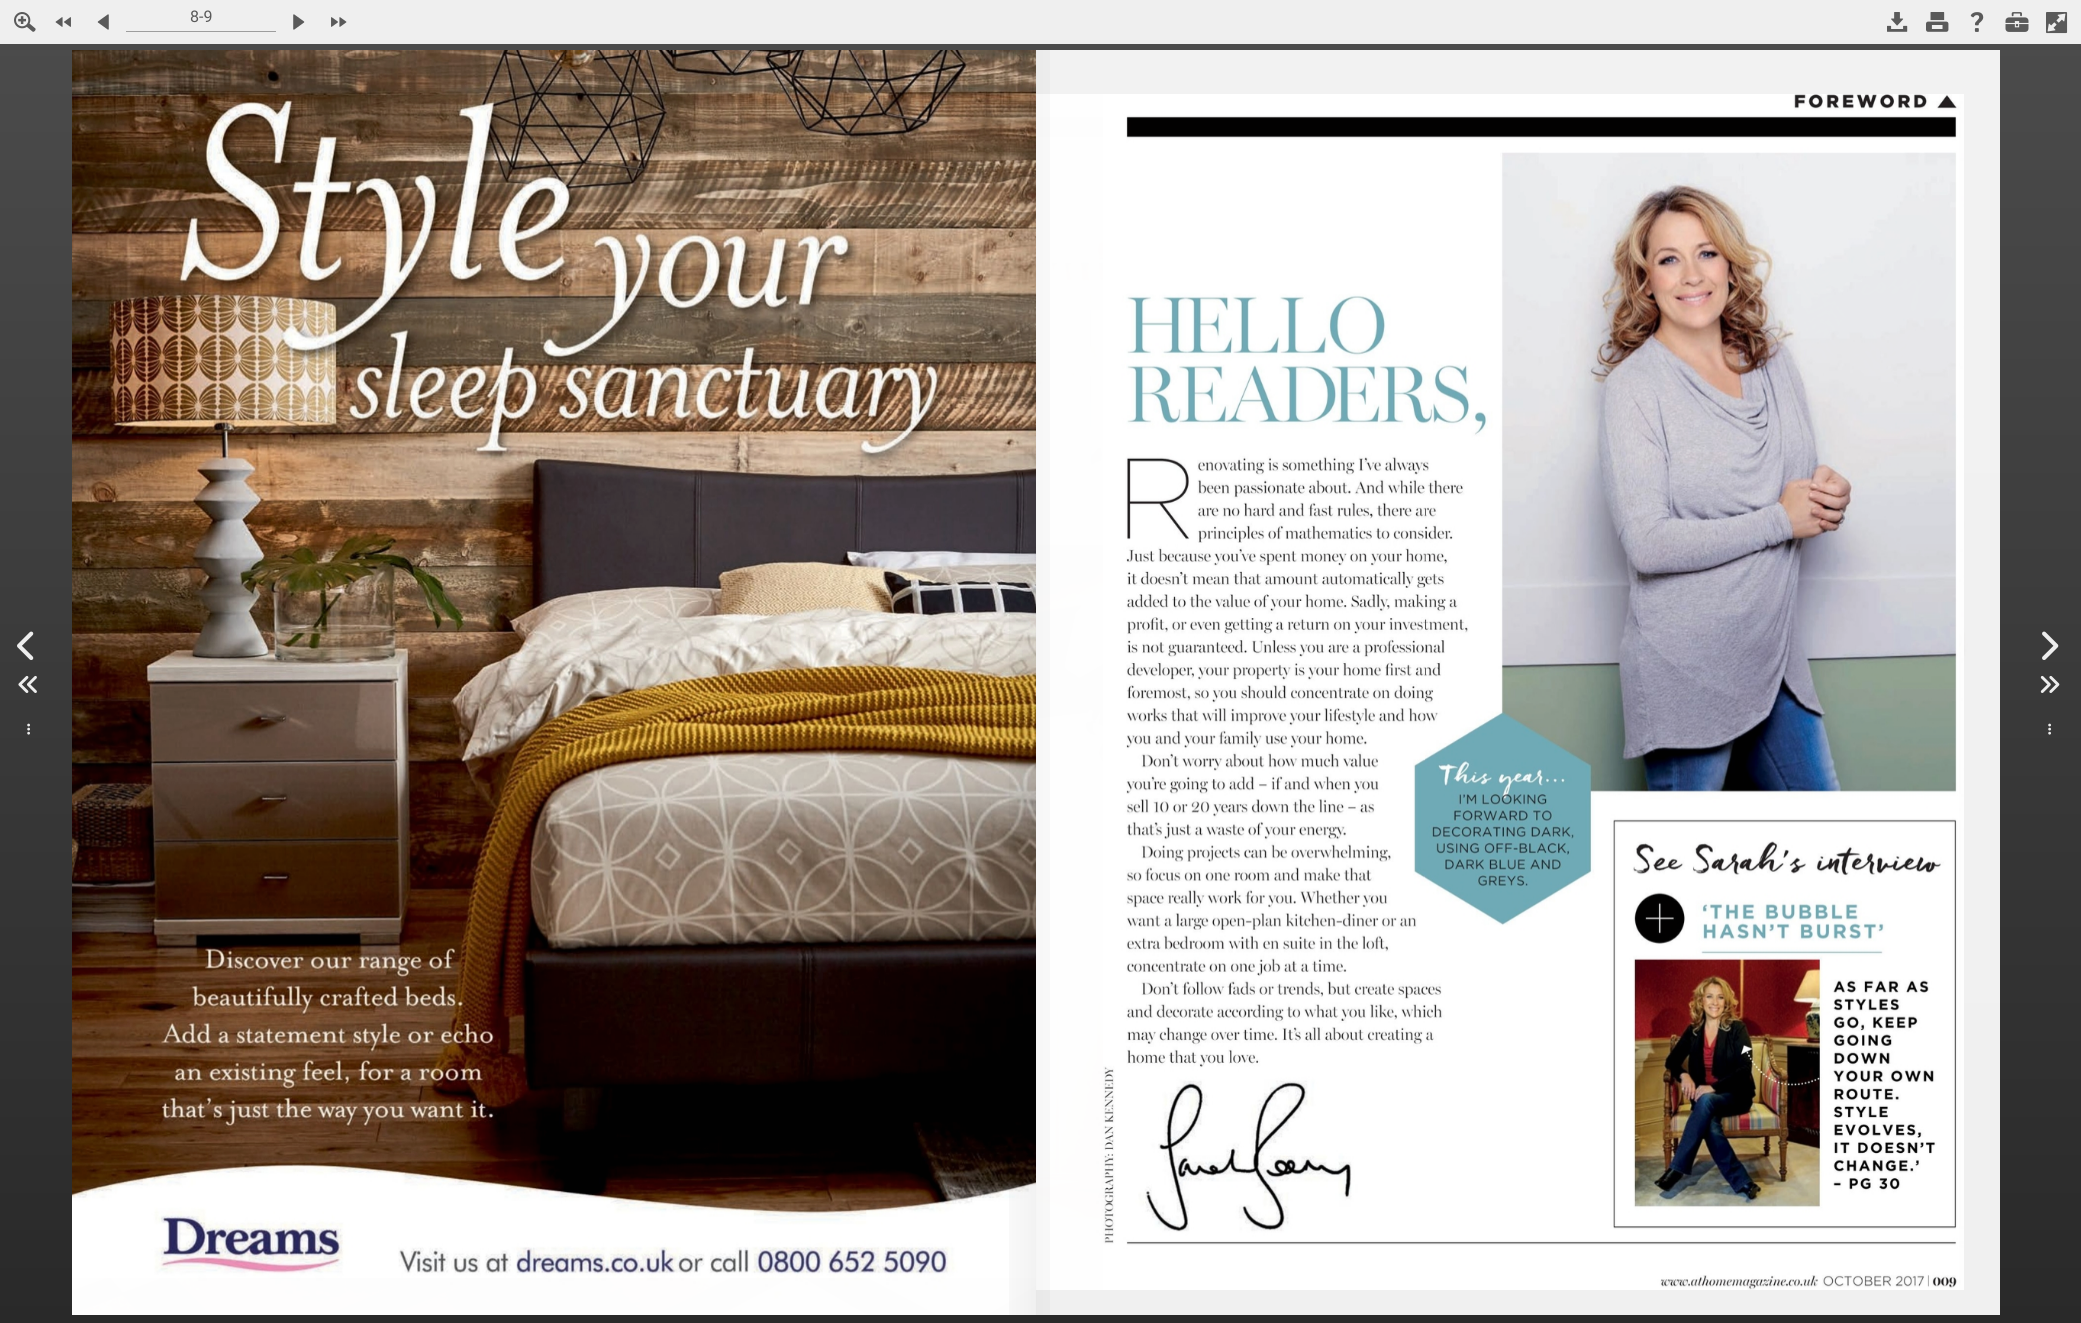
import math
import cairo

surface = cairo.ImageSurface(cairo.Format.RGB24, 2081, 1323)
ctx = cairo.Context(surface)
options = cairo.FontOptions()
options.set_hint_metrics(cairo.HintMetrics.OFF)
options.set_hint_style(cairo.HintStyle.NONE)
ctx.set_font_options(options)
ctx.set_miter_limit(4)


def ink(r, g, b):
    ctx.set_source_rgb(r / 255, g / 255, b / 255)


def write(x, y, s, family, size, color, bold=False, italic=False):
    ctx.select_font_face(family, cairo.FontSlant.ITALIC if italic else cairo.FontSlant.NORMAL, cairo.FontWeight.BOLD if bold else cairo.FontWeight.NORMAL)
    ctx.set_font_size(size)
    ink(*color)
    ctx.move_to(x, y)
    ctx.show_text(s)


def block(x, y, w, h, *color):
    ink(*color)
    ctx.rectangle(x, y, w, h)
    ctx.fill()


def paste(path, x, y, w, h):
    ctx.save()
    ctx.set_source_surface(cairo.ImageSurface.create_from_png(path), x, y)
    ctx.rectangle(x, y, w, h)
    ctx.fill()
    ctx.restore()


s1 = dict(family="Roboto", size=16, color=(90, 90, 90))

ink(255, 255, 255)
ctx.paint()
gradient = cairo.LinearGradient(1041, 0, 1041, 1323)
gradient.add_color_stop_rgba(0, 0.298, 0.298, 0.298, 1)
gradient.add_color_stop_rgba(1, 0.161, 0.161, 0.161, 1)
ctx.set_source(gradient)
ctx.rectangle(0, 44, 2081, 1279)
ctx.fill()
block(0, 0, 2081, 44, 239, 239, 239)
paste("pic1.png", 14, 12, 22, 20)
paste("pic2.png", 55, 17, 16, 10)
paste("pic3.png", 97, 14, 12, 16)
block(126, 31, 150, 1, 158, 158, 158)
write(190, 22, "8-9", **s1)
paste("pic4.png", 293, 14, 12, 16)
paste("pic5.png", 331, 17, 16, 10)
paste("pic6.png", 1887, 12, 21, 20)
paste("pic7.png", 1926, 12, 23, 20)
paste("pic8.png", 1970, 12, 14, 20)
paste("pic9.png", 2005, 12, 24, 20)
paste("pic10.png", 2046, 12, 22, 22)
paste("pic11.png", 17, 631, 17, 29)
paste("pic12.png", 18, 675, 19, 18)
paste("pic13.png", 27, 723, 3, 12)
paste("pic14.png", 72, 50, 964, 1265)
paste("pic15.png", 72, 50, 964, 1265)
paste("pic16.png", 72, 50, 964, 1228)
gradient = cairo.LinearGradient(72, 684, 1036, 684)
gradient.add_color_stop_rgba(0.95, 0, 0, 0, 0)
gradient.add_color_stop_rgba(1, 0, 0, 0, 0.05)
ctx.set_source(gradient)
ctx.rectangle(1009, 50, 27, 1265)
ctx.fill()
paste("pic17.png", 1036, 50, 964, 1265)
paste("pic18.png", 1036, 94, 928, 1196)
gradient = cairo.LinearGradient(2000, 684, 1036, 684)
gradient.add_color_stop_rgba(0.95, 0, 0, 0, 0)
gradient.add_color_stop_rgba(1, 0, 0, 0, 0.03)
ctx.set_source(gradient)
ctx.rectangle(1036, 50, 14, 1265)
ctx.fill()
paste("pic19.png", 1103, 94, 856, 1196)
paste("pic20.png", 2042, 631, 17, 29)
paste("pic21.png", 2040, 675, 20, 18)
paste("pic13.png", 2048, 723, 3, 12)
surface.write_to_png("screenshot.png")
